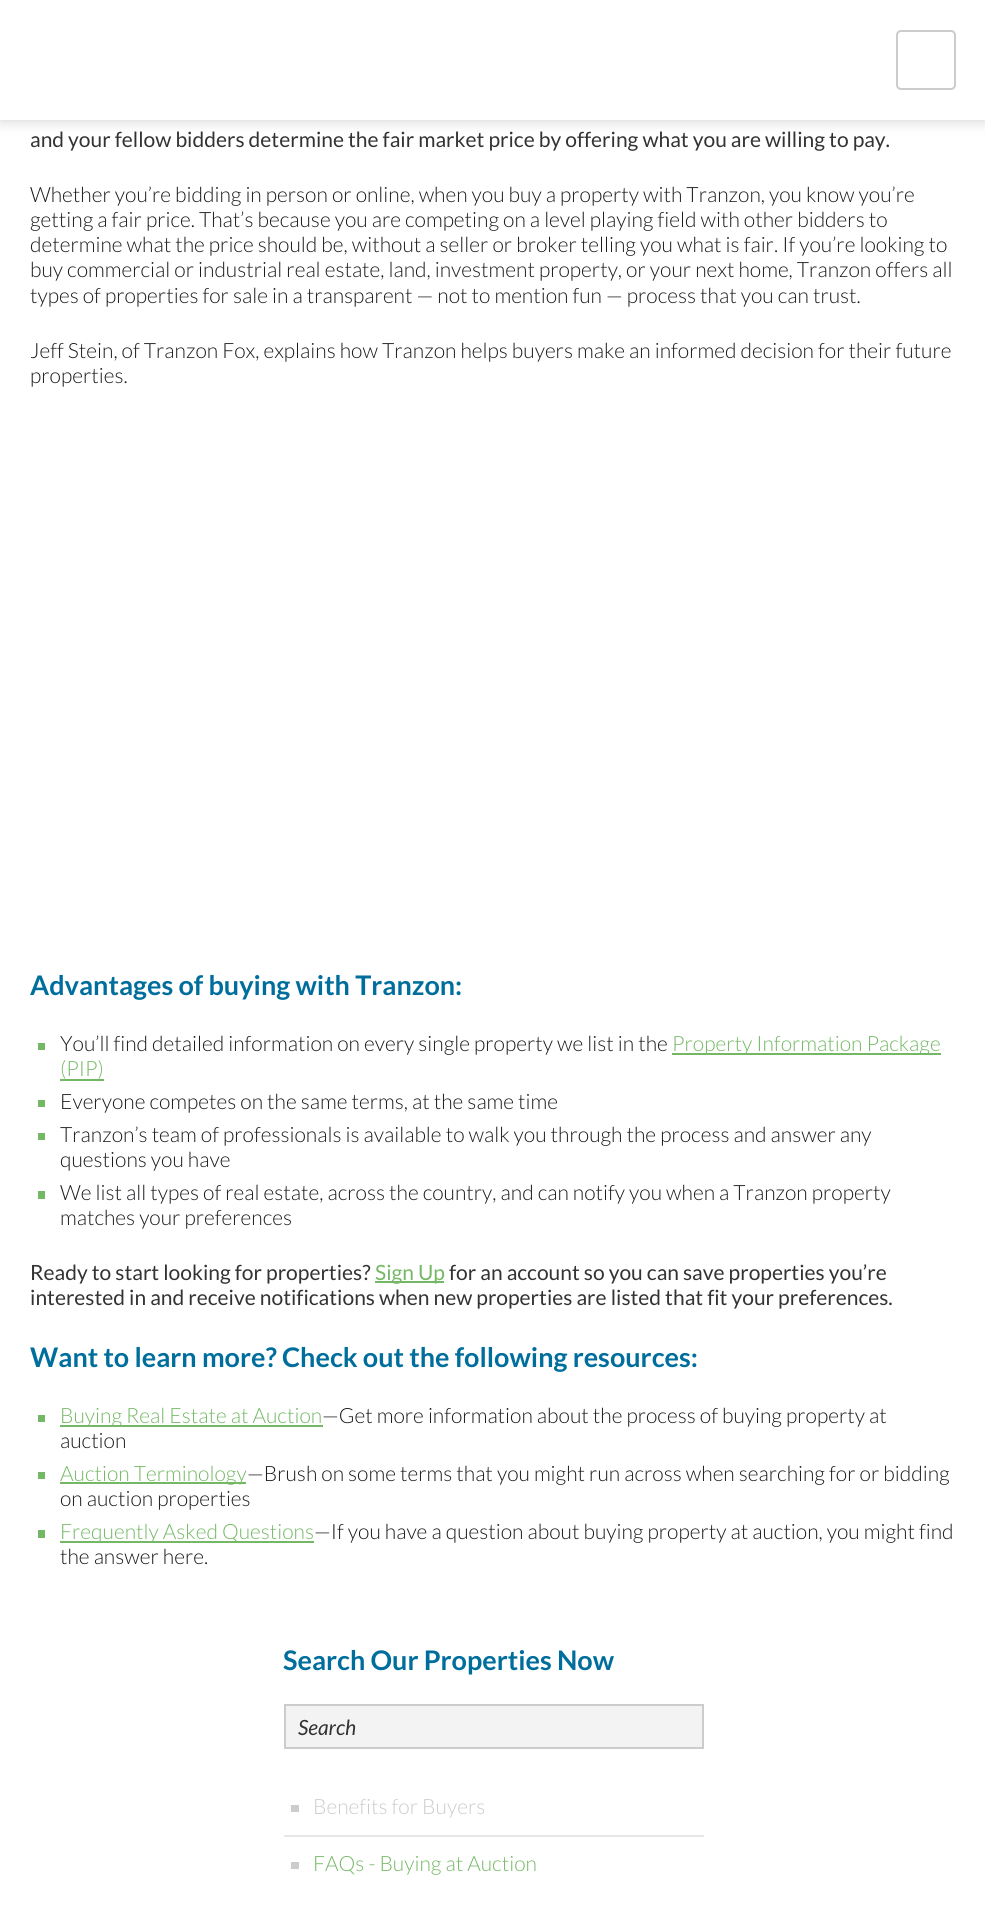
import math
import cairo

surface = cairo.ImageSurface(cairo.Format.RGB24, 985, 1918)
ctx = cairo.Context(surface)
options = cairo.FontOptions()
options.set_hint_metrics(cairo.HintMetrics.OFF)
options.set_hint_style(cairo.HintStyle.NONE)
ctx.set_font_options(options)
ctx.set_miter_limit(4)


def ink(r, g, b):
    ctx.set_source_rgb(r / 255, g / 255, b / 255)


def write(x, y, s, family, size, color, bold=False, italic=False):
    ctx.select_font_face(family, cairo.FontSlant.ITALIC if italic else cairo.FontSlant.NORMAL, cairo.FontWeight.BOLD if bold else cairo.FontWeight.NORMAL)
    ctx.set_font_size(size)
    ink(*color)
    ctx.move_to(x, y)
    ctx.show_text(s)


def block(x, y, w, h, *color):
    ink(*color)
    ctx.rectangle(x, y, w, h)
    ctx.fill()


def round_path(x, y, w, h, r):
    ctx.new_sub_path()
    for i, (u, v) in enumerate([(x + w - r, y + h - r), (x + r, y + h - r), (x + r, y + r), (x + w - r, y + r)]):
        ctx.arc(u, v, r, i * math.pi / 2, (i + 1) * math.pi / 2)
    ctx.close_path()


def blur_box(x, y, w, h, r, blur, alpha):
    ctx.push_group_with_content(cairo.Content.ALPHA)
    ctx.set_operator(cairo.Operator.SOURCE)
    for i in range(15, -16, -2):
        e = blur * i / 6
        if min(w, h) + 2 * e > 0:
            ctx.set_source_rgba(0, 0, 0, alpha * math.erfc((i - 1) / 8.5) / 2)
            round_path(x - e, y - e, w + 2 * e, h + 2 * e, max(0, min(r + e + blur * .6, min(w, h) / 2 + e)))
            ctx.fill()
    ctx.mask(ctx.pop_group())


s1 = dict(family="Lato", size=21, color=(51, 51, 51))
s2 = dict(family="Lato Light", size=21, color=(27, 27, 30))
s3 = dict(family="Lato", size=27, color=(0, 110, 156), bold=True)
s4 = dict(family="Lato Light", size=21, color=(116, 184, 101))
s5 = dict(family="Lato", size=21, color=(116, 184, 101))
s6 = dict(family="Lato", size=21, color=(51, 51, 51), italic=True)
s7 = dict(family="Lato Light", size=21, color=(204, 204, 204))

ink(255, 255, 255)
ctx.paint()
ink(0, 0, 0)
blur_box(0, 0, 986, 120, 0, 7.5, 0.2)
block(0, 0, 985, 120, 255, 255, 255)
round_path(897, 31, 58, 58, 4)
ink(204, 204, 204)
ctx.stroke()
write(30, 147, "and your fellow bidders determine the fair market price by offering what you are willing to pay.", **s1)
write(30, 202, "Whether you’re bidding in person or online, when you buy a property with Tranzon, you know you’re", **s2)
write(30, 227, "getting a fair price. That’s because you are competing on a level playing field with other bidders to", **s2)
write(30, 252, "determine what the price should be, without a seller or broker telling you what is fair. If you’re looking to", **s2)
write(30, 277, "buy commercial or industrial real estate, land, investment property, or your next home, Tranzon offers all", **s2)
write(30, 303, "types of properties for sale in a transparent — not to mention fun — process that you can trust.", **s2)
write(30, 358, "Jeff Stein, of Tranzon Fox, explains how Tranzon helps buyers make an informed decision for their future", **s2)
write(30, 383, "properties.", **s2)
write(30, 995, "Advantages of buying with Tranzon:", **s3)
block(38, 1043, 7, 7, 116, 184, 101)
write(60, 1051, "You’ll find detailed information on every single property we list in the", **s2)
block(672, 1053, 269, 2, 116, 184, 101)
write(672, 1051, "Property Information Package", **s4)
write(60, 1076, "(PIP)", **s4)
block(60, 1079, 44, 2, 116, 184, 101)
block(38, 1100, 7, 7, 116, 184, 101)
write(60, 1109, "Everyone competes on the same terms, at the same time", **s2)
block(38, 1133, 7, 7, 116, 184, 101)
write(60, 1142, "Tranzon’s team of professionals is available to walk you through the process and answer any", **s2)
write(60, 1167, "questions you have", **s2)
block(38, 1191, 7, 8, 116, 184, 101)
write(60, 1200, "We list all types of real estate, across the country, and can notify you when a Tranzon property", **s2)
write(60, 1225, "matches your preferences", **s2)
write(30, 1280, "Ready to start looking for properties?", **s1)
block(375, 1281, 69, 2, 116, 184, 101)
write(375, 1280, "Sign Up", **s5)
write(449, 1280, "for an account so you can save properties you’re", **s1)
write(30, 1305, "interested in and receive notifications when new properties are listed that fit your preferences.", **s1)
write(30, 1367, "Want to learn more? Check out the following resources:", **s3)
block(38, 1415, 7, 7, 116, 184, 101)
block(60, 1425, 263, 2, 116, 184, 101)
write(60, 1423, "Buying Real Estate at Auction", **s4)
write(322, 1423, "—Get more information about the process of buying property at", **s2)
write(60, 1448, "auction", **s2)
block(38, 1472, 7, 7, 116, 184, 101)
block(60, 1482, 186, 2, 116, 184, 101)
write(60, 1481, "Auction Terminology", **s4)
write(247, 1481, "—Brush on some terms that you might run across when searching for or bidding", **s2)
write(60, 1506, "on auction properties", **s2)
block(38, 1530, 7, 8, 116, 184, 101)
block(60, 1541, 254, 2, 116, 184, 101)
write(60, 1539, "Frequently Asked Questions", **s4)
write(314, 1539, "—If you have a question about buying property at auction, you might find", **s2)
write(60, 1564, "the answer here.", **s2)
write(283, 1670, "Search Our Properties Now", **s3)
ink(243, 243, 243)
ctx.rectangle(285, 1705, 418, 43)
ctx.fill_preserve()
ink(204, 204, 204)
ctx.stroke()
write(298, 1735, "Search", **s6)
block(291, 1805, 8, 7, 204, 204, 204)
write(313, 1814, "Benefits for Buyers", **s7)
block(284, 1835, 420, 2, 230, 230, 230)
block(291, 1862, 8, 7, 204, 204, 204)
write(313, 1871, "FAQs - Buying at Auction", **s4)
surface.write_to_png("screenshot.png")
